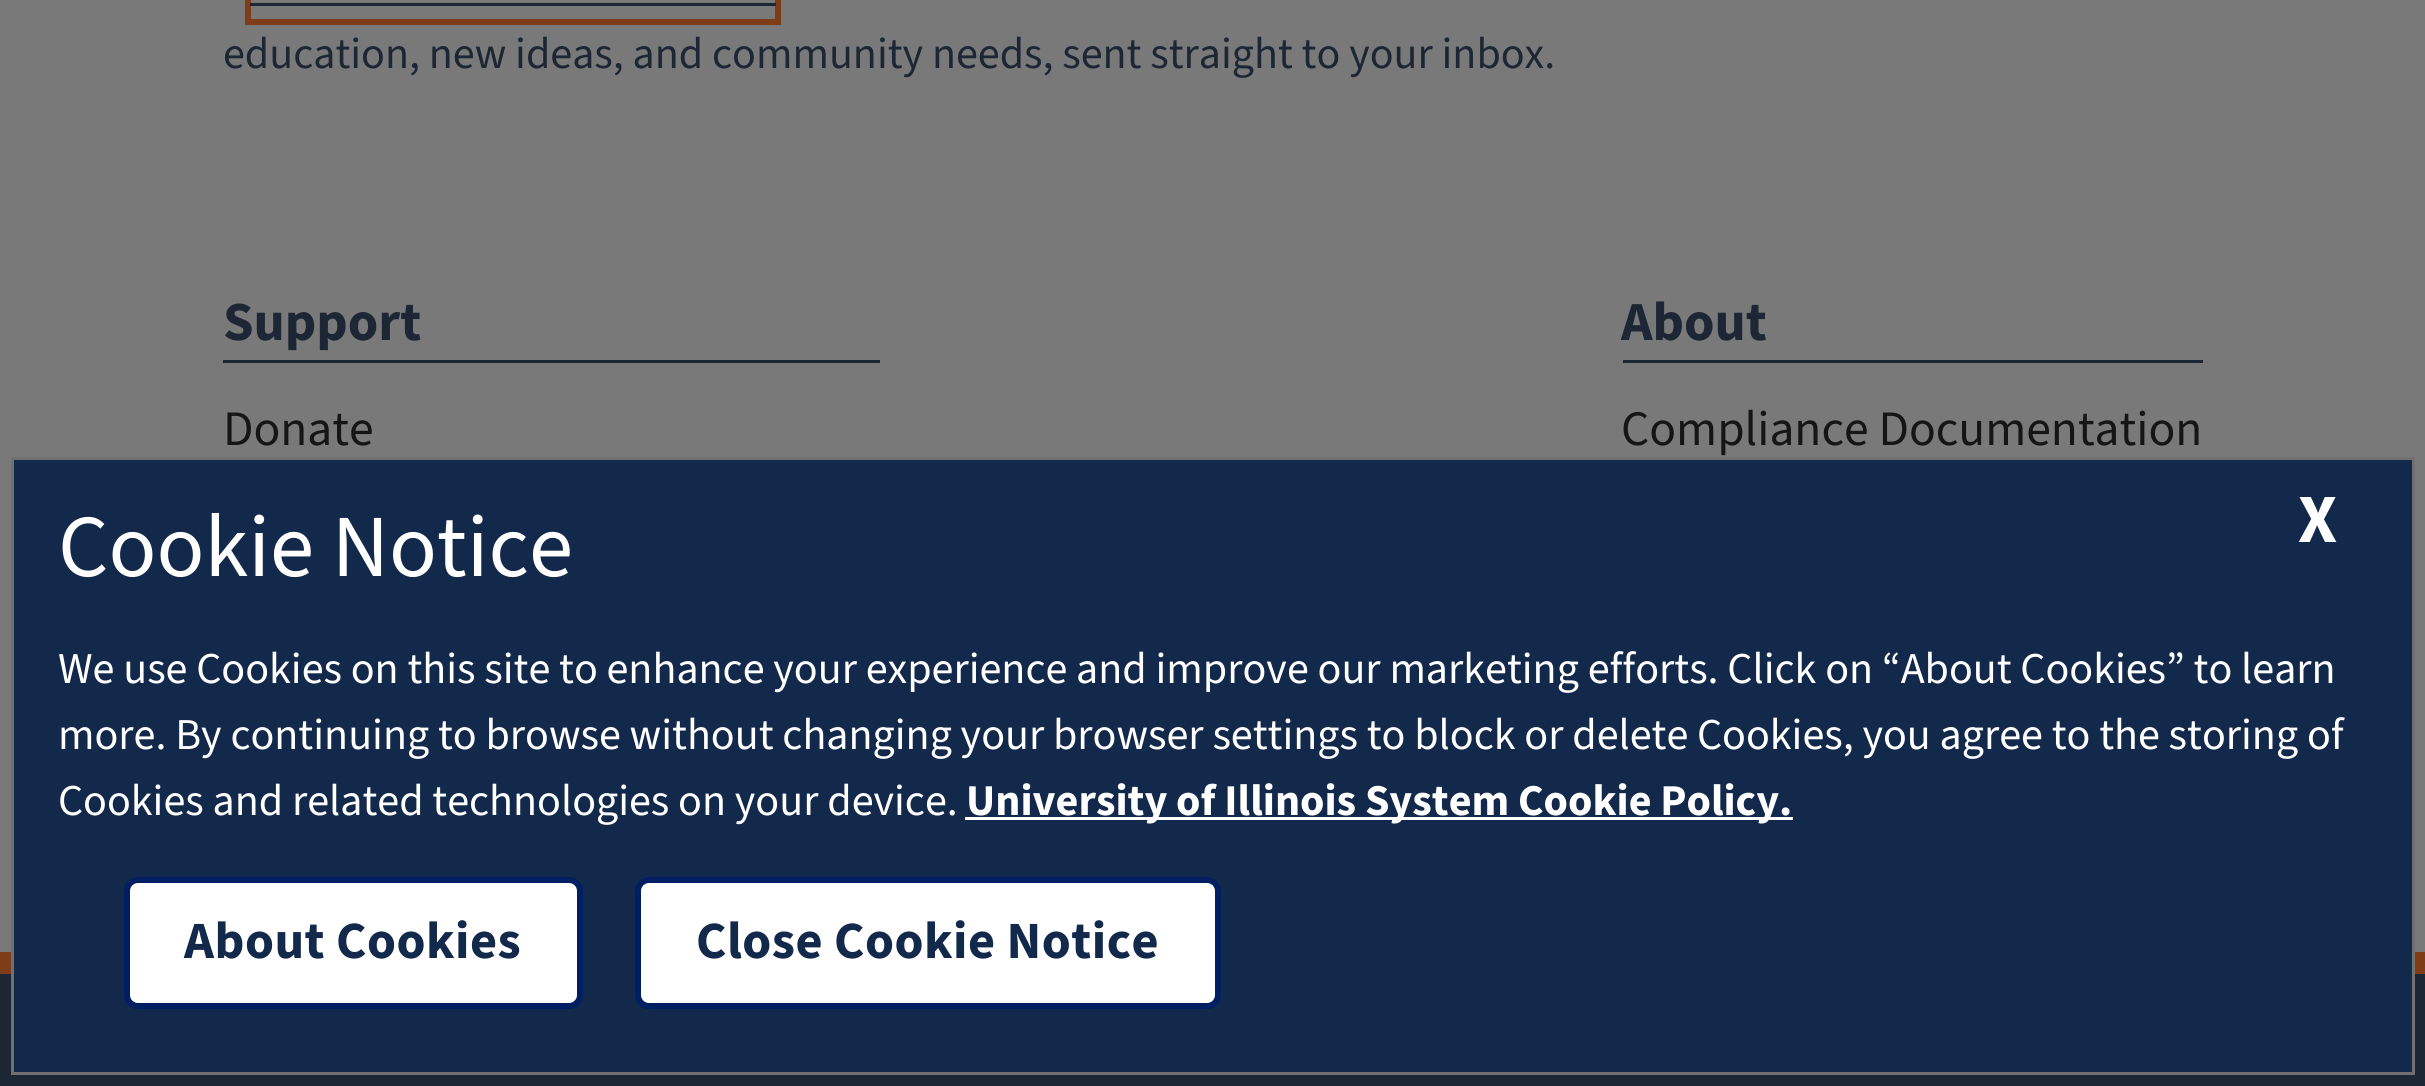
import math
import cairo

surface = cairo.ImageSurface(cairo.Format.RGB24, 2425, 1086)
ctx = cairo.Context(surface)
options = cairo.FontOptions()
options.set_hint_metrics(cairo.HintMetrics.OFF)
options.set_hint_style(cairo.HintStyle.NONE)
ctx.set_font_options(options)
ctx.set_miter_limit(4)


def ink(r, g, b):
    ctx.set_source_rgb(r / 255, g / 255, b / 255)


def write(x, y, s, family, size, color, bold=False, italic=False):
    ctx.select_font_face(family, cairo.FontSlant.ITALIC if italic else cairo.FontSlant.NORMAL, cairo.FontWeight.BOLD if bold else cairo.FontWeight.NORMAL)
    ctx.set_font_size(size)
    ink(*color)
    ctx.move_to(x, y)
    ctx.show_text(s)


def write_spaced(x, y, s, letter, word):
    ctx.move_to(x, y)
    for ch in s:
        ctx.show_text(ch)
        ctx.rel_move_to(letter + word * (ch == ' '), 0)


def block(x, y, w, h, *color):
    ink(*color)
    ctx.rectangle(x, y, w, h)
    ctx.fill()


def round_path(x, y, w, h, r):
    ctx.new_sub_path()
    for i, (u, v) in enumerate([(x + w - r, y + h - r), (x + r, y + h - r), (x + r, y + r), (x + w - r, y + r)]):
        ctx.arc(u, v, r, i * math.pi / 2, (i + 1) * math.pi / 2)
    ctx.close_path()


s1 = dict(family="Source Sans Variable", size=44, color=(29, 38, 52))
s2 = dict(family="Source Sans Variable", size=55, color=(29, 38, 52), bold=True)
s3 = dict(family="Source Sans Variable", size=49.5, color=(21, 21, 21))
s4 = dict(family="Source Sans Variable", size=88.5, color=(255, 255, 255))
s5 = dict(family="Source Sans Variable", size=69, color=(255, 255, 255), bold=True)
s6 = dict(family="Source Sans Variable", size=44, color=(255, 255, 255))
s7 = dict(family="Source Sans Variable", size=44, color=(255, 255, 255), bold=True)

ink(121, 121, 121)
ctx.paint()
ctx.rectangle(248, -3, 530, 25)
ink(126, 60, 23)
ctx.set_line_width(6)
ctx.stroke()
block(250, 3, 526, 3, 29, 38, 52)
write(223, 68, "education, new ideas, and community needs, sent straight to your inbox.", **s1)
block(223, 360, 657, 3, 29, 38, 52)
write(223, 340, "Support", **s2)
write(223, 445, "Donate", **s3)
block(1623, 360, 580, 3, 29, 38, 52)
write(1621, 340, "About", **s2)
write(1621, 445, "Compliance Documentation", **s3)
block(0, 974, 2425, 112, 29, 38, 52)
block(0, 952, 2425, 22, 126, 60, 23)
ink(19, 41, 75)
ctx.rectangle(12.5, 458.5, 2401, 615)
ctx.fill_preserve()
ink(112, 112, 112)
ctx.set_line_width(3)
ctx.stroke()
write(58, 576, "Cookie Notice", **s4)
write(2298, 542, "X", **s5)
write(58, 683, "We use Cookies on this site to enhance your experience and improve our marketing efforts. Click on “About Cookies” to learn", **s6)
write(58, 749, "more. By continuing to browse without changing your browser settings to block or delete Cookies, you agree to the storing of", **s6)
write(58, 815, "Cookies and related technologies on your device.", **s6)
block(965, 817, 828, 3, 255, 255, 255)
write(966, 815, "University of Illinois System Cookie Policy.", **s7)
round_path(127, 880, 453, 126, 11)
ctx.fill_preserve()
ink(0, 30, 98)
ctx.set_line_width(6)
ctx.stroke()
ctx.set_font_size(52.25)
ink(19, 41, 75)
write_spaced(184, 958, "About Cookies", 0.5, 0)
ink(255, 255, 255)
round_path(638, 880, 580, 126, 11)
ctx.fill_preserve()
ink(0, 30, 98)
ctx.stroke()
ink(19, 41, 75)
write_spaced(696, 958, "Close Cookie Notice", 0.5, 0)
surface.write_to_png("screenshot.png")
